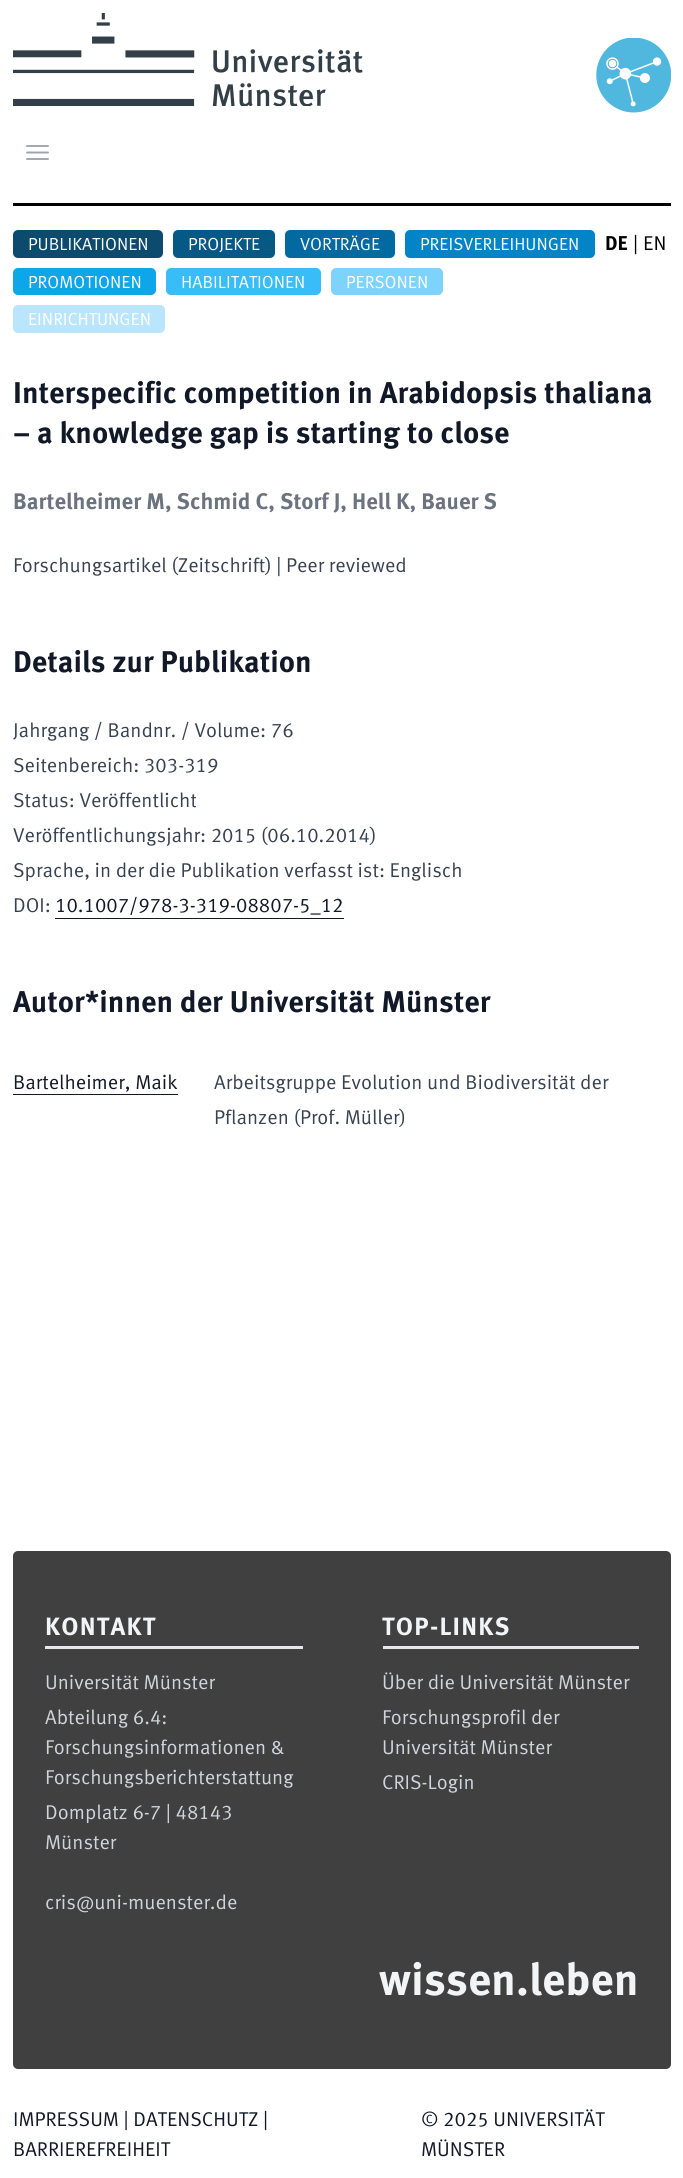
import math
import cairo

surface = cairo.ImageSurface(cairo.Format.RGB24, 683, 2178)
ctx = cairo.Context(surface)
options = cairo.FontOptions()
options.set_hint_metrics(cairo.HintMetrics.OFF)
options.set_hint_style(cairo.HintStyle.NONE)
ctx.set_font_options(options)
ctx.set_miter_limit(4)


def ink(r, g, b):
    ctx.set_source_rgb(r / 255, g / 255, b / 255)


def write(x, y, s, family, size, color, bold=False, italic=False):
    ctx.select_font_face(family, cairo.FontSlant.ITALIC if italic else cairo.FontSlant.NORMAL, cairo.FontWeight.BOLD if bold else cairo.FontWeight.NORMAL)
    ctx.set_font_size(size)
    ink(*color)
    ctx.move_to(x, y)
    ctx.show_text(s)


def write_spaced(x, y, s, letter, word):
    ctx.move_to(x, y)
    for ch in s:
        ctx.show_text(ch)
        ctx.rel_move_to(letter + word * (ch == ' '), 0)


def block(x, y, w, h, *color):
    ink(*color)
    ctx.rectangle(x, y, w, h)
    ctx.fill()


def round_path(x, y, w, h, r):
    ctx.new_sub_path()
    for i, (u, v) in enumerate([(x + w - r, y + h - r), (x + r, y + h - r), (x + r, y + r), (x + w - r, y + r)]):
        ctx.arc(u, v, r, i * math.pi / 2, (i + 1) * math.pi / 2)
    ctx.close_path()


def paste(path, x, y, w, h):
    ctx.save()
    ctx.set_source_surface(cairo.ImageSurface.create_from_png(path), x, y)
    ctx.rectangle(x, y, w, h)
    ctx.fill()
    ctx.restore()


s1 = dict(family="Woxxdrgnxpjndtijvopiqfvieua", size=17.5, color=(255, 255, 255))
s2 = dict(family="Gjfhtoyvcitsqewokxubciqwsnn", size=20, color=(0, 0, 0), bold=True)
s3 = dict(family="Woxxdrgnxpjndtijvopiqfvieua", size=20, color=(0, 0, 0))
s4 = dict(family="Gjfhtoyvcitsqewokxubciqwsnn", size=30, color=(17, 24, 39), bold=True)
s5 = dict(family="Gjfhtoyvcitsqewokxubciqwsnn", size=22.5, color=(107, 114, 128), bold=True)
s6 = dict(family="Woxxdrgnxpjndtijvopiqfvieua", size=20, color=(55, 65, 81))
s7 = dict(family="Woxxdrgnxpjndtijvopiqfvieua", size=20, color=(17, 24, 39))
s8 = dict(family="Woxxdrgnxpjndtijvopiqfvieua", size=20, color=(209, 213, 219))
s9 = dict(family="Gjfhtoyvcitsqewokxubciqwsnn", size=45, color=(243, 244, 246), bold=True)

ink(255, 255, 255)
ctx.paint()
block(13, 203, 658, 3, 0, 0, 0)
paste("pic1.png", 13, 13, 350, 93)
paste("pic2.png", 596, 38, 75, 75)
ctx.new_path()
ctx.move_to(27, 146)
ctx.line_to(48, 146)
ctx.move_to(27, 152.5)
ctx.line_to(48, 152.5)
ctx.move_to(27, 159)
ctx.line_to(48, 159)
ink(156, 163, 175)
ctx.set_line_width(1.9)
ctx.set_line_cap(cairo.LineCap.ROUND)
ctx.set_line_join(cairo.LineJoin.ROUND)
ctx.stroke()
ink(12, 74, 110)
round_path(13, 230, 150, 28, 5)
ctx.fill()
write(28, 250, "PUBLIKATIONEN", **s1)
ink(7, 89, 133)
round_path(173, 230, 102, 28, 5)
ctx.fill()
write(188, 250, "PROJEKTE", **s1)
ink(3, 105, 161)
round_path(285, 230, 110, 28, 5)
ctx.fill()
write(300, 250, "VORTRÄGE", **s1)
ink(2, 132, 199)
round_path(405, 230, 190, 28, 5)
ctx.fill()
write(420, 250, "PREISVERLEIHUNGEN", **s1)
ink(14, 165, 233)
round_path(13, 268, 143, 27, 5)
ctx.fill()
write(28, 288, "PROMOTIONEN", **s1)
ink(56, 189, 248)
round_path(166, 268, 155, 27, 5)
ctx.fill()
write(181, 288, "HABILITATIONEN", **s1)
ink(125, 211, 252)
round_path(331, 268, 112, 27, 5)
ctx.fill()
write(346, 288, "PERSONEN", **s1)
ink(186, 230, 253)
round_path(13, 305, 152, 28, 5)
ctx.fill()
write(28, 325, "EINRICHTUNGEN", **s1)
write(605, 250, "DE", **s2)
write(633, 250, "|", **s3)
write(643, 250, "EN", **s3)
write(13, 403, "Interspecific competition in Arabidopsis thaliana", **s4)
write(13, 443, "– a knowledge gap is starting to close", **s4)
write(13, 509, "Bartelheimer M, Schmid C, Storf J, Hell K, Bauer S", **s5)
write(13, 572, "Forschungsartikel (Zeitschrift) | Peer reviewed", **s6)
write(13, 672, "Details zur Publikation", **s4)
write(13, 737, "Jahrgang / Bandnr. / Volume: 76", **s6)
write(13, 772, "Seitenbereich: 303-319", **s6)
write(13, 807, "Status: Veröffentlicht", **s6)
write(13, 842, "Veröffentlichungsjahr: 2015 (06.10.2014)", **s6)
write(13, 877, "Sprache, in der die Publikation verfasst ist: Englisch", **s6)
write(13, 912, "DOI:", **s6)
write(55, 912, "10.1007/978-3-319-08807-5_12", **s7)
block(55, 918, 289, 1, 17, 24, 39)
write(13, 1012, "Autor*innen der Universität Münster", **s4)
write(13, 1089, "Bartelheimer, Maik", **s7)
block(13, 1094, 165, 1, 17, 24, 39)
write(214, 1089, "Arbeitsgruppe Evolution und Biodiversität der", **s6)
write(214, 1124, "Pflanzen (Prof. Müller)", **s6)
ink(64, 64, 64)
round_path(13, 1551, 658, 518, 5)
ctx.fill()
block(45, 1646, 258, 3, 229, 231, 235)
ctx.select_font_face("Gjfhtoyvcitsqewokxubciqwsnn", cairo.FontSlant.NORMAL, cairo.FontWeight.BOLD)
ctx.set_font_size(25)
ink(243, 244, 246)
write_spaced(45, 1635, "KONTAKT", 1.25, 0)
write(45, 1689, "Universität Münster", **s8)
write(45, 1724, "Abteilung 6.4:", **s8)
write(45, 1754, "Forschungsinformationen &", **s8)
write(45, 1784, "Forschungsberichterstattung", **s8)
write(45, 1819, "Domplatz 6-7 | 48143", **s8)
write(45, 1849, "Münster", **s8)
write(45, 1909, "cris@uni-muenster.de", **s8)
block(383, 1646, 256, 3, 229, 231, 235)
ctx.select_font_face("Gjfhtoyvcitsqewokxubciqwsnn", cairo.FontSlant.NORMAL, cairo.FontWeight.BOLD)
ctx.set_font_size(25)
ink(243, 244, 246)
write_spaced(382, 1635, "TOP-LINKS", 1.25, 0)
write(382, 1689, "Über die Universität Münster", **s8)
write(382, 1724, "Forschungsprofil der", **s8)
write(382, 1754, "Universität Münster", **s8)
write(382, 1789, "CRIS-Login", **s8)
write(379, 1995, "wissen.leben", **s9)
write(13, 2126, "IMPRESSUM | DATENSCHUTZ |", **s7)
write(13, 2156, "BARRIEREFREIHEIT", **s7)
write(421, 2126, "© 2025 UNIVERSITÄT", **s7)
write(421, 2156, "MÜNSTER", **s7)
surface.write_to_png("screenshot.png")
